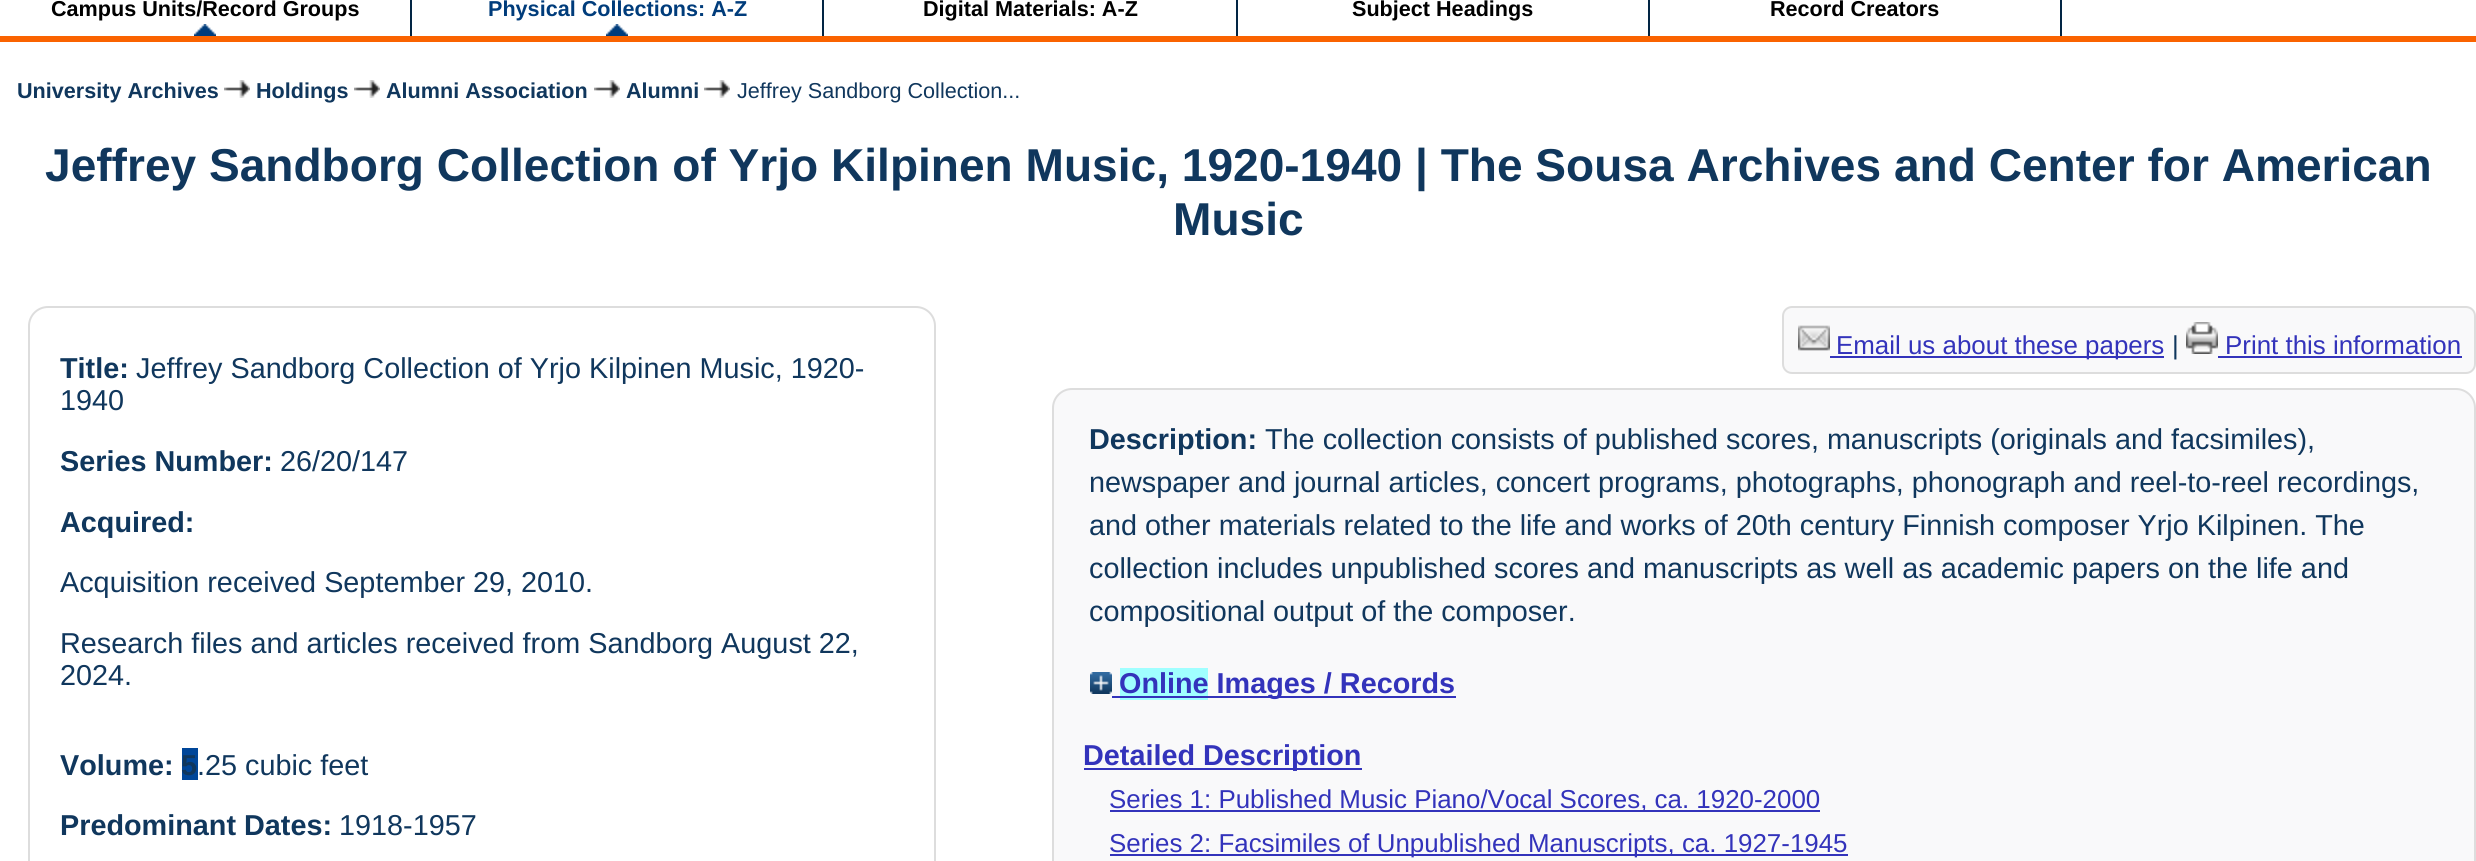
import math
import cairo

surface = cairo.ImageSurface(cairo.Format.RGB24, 2476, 861)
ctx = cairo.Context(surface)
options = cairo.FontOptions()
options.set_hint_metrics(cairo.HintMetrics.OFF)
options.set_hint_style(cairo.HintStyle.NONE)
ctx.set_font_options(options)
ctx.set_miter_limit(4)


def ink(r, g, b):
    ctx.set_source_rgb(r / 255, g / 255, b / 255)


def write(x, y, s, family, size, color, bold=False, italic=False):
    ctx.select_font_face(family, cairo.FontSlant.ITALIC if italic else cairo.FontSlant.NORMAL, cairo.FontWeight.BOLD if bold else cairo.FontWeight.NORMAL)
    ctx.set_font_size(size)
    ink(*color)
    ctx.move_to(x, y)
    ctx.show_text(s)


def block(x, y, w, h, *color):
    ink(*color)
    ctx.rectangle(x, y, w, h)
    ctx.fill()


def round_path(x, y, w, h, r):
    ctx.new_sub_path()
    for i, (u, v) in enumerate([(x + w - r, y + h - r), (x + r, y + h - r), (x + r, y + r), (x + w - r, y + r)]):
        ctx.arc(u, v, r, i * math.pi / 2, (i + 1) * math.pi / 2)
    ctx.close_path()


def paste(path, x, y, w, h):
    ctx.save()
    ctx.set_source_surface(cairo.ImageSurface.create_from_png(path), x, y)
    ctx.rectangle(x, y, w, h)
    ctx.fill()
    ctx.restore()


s1 = dict(family="Liberation Sans", size=21.6, color=(0, 0, 0), bold=True)
s2 = dict(family="Liberation Sans", size=21.6, color=(0, 60, 123), bold=True)
s3 = dict(family="Liberation Sans", size=21.6, color=(16, 55, 93), bold=True)
s4 = dict(family="Liberation Sans", size=21.6, color=(16, 55, 93))
s5 = dict(family="Liberation Sans", size=46.08, color=(16, 55, 93), bold=True)
s6 = dict(family="Liberation Sans", size=28.8, color=(16, 55, 93), bold=True)
s7 = dict(family="Liberation Sans", size=28.8, color=(16, 55, 93))
s8 = dict(family="Liberation Sans", size=25.9, color=(51, 51, 187))
s9 = dict(family="Liberation Sans", size=25.9, color=(16, 55, 93))
s10 = dict(family="Liberation Sans", size=28.8, color=(51, 51, 187), bold=True)

ink(255, 255, 255)
ctx.paint()
block(0, 36, 2476, 6, 250, 99, 0)
paste("pic1.png", 194, 24, 22, 12)
block(410, 0, 2, 36, 2, 37, 68)
write(51, 16, "Campus Units/Record Groups", **s1)
paste("pic1.png", 606, 24, 22, 12)
block(822, 0, 2, 36, 2, 37, 68)
write(488, 16, "Physical Collections: A-Z", **s2)
block(1236, 0, 2, 36, 2, 37, 68)
write(923, 16, "Digital Materials: A-Z", **s1)
block(1648, 0, 2, 36, 2, 37, 68)
write(1352, 16, "Subject Headings", **s1)
block(2060, 0, 2, 36, 2, 37, 68)
write(1770, 16, "Record Creators", **s1)
write(17, 98, "University Archives", **s3)
paste("pic2.png", 224, 80, 26, 18)
write(256, 98, "Holdings", **s3)
paste("pic2.png", 354, 80, 26, 18)
write(386, 98, "Alumni Association", **s3)
paste("pic2.png", 594, 80, 26, 18)
write(626, 98, "Alumni", **s3)
paste("pic2.png", 704, 80, 26, 18)
write(737, 98, "Jeffrey Sandborg Collection...", **s4)
write(45, 181, "Jeffrey Sandborg Collection of Yrjo Kilpinen Music, 1920-1940 | The Sousa Archives and Center for American", **s5)
write(1173, 235, "Music", **s5)
round_path(29, 307, 906, 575, 19)
ink(221, 221, 221)
ctx.stroke()
write(60, 378, "Title:", **s6)
write(136, 378, "Jeffrey Sandborg Collection of Yrjo Kilpinen Music, 1920-", **s7)
write(60, 410, "1940", **s7)
write(60, 471, "Series Number:", **s6)
write(280, 471, "26/20/147", **s7)
write(60, 532, "Acquired:", **s6)
write(60, 592, "Acquisition received September 29, 2010.", **s7)
write(60, 653, "Research files and articles received from Sandborg August 22,", **s7)
write(60, 685, "2024.", **s7)
write(60, 775, "Volume:", **s6)
block(182, 748, 16, 32, 0, 70, 153)
write(181, 775, "5", **s6)
write(197, 775, ".25 cubic feet", **s7)
write(60, 835, "Predominant Dates:", **s6)
write(339, 835, "1918-1957", **s7)
ink(249, 249, 250)
round_path(1783, 307, 692, 66, 9)
ctx.fill_preserve()
ink(221, 221, 221)
ctx.stroke()
paste("pic3.png", 1798, 325, 32, 26)
block(1830, 356, 334, 2, 51, 51, 187)
write(1836, 354, "Email us about these papers", **s8)
write(2172, 354, "|", **s9)
paste("pic4.png", 2186, 322, 32, 32)
write(2225, 354, "Print this information", **s8)
block(2218, 356, 244, 2, 51, 51, 187)
ink(249, 249, 250)
round_path(1053, 389, 1422, 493, 19)
ctx.fill_preserve()
ink(221, 221, 221)
ctx.stroke()
write(1089, 449, "Description:", **s6)
write(1265, 449, "The collection consists of published scores, manuscripts (originals and facsimiles),", **s7)
write(1089, 492, "newspaper and journal articles, concert programs, photographs, phonograph and reel-to-reel recordings,", **s7)
write(1089, 535, "and other materials related to the life and works of 20th century Finnish composer Yrjo Kilpinen. The", **s7)
write(1089, 578, "collection includes unpublished scores and manuscripts as well as academic papers on the life and", **s7)
write(1089, 621, "compositional output of the composer.", **s7)
paste("pic5.png", 1090, 672, 22, 22)
block(1120, 668, 88, 32, 160, 255, 255)
block(1120, 696, 336, 2, 51, 51, 187)
write(1119, 693, "Online Images / Records", **s10)
block(1112, 696, 8, 2, 51, 51, 187)
block(1084, 768, 278, 2, 51, 51, 187)
write(1083, 765, "Detailed Description", **s10)
block(1110, 810, 710, 2, 51, 51, 187)
write(1109, 808, "Series 1: Published Music Piano/Vocal Scores, ca. 1920-2000", **s8)
block(1110, 854, 738, 2, 51, 51, 187)
write(1109, 852, "Series 2: Facsimiles of Unpublished Manuscripts, ca. 1927-1945", **s8)
surface.write_to_png("screenshot.png")
